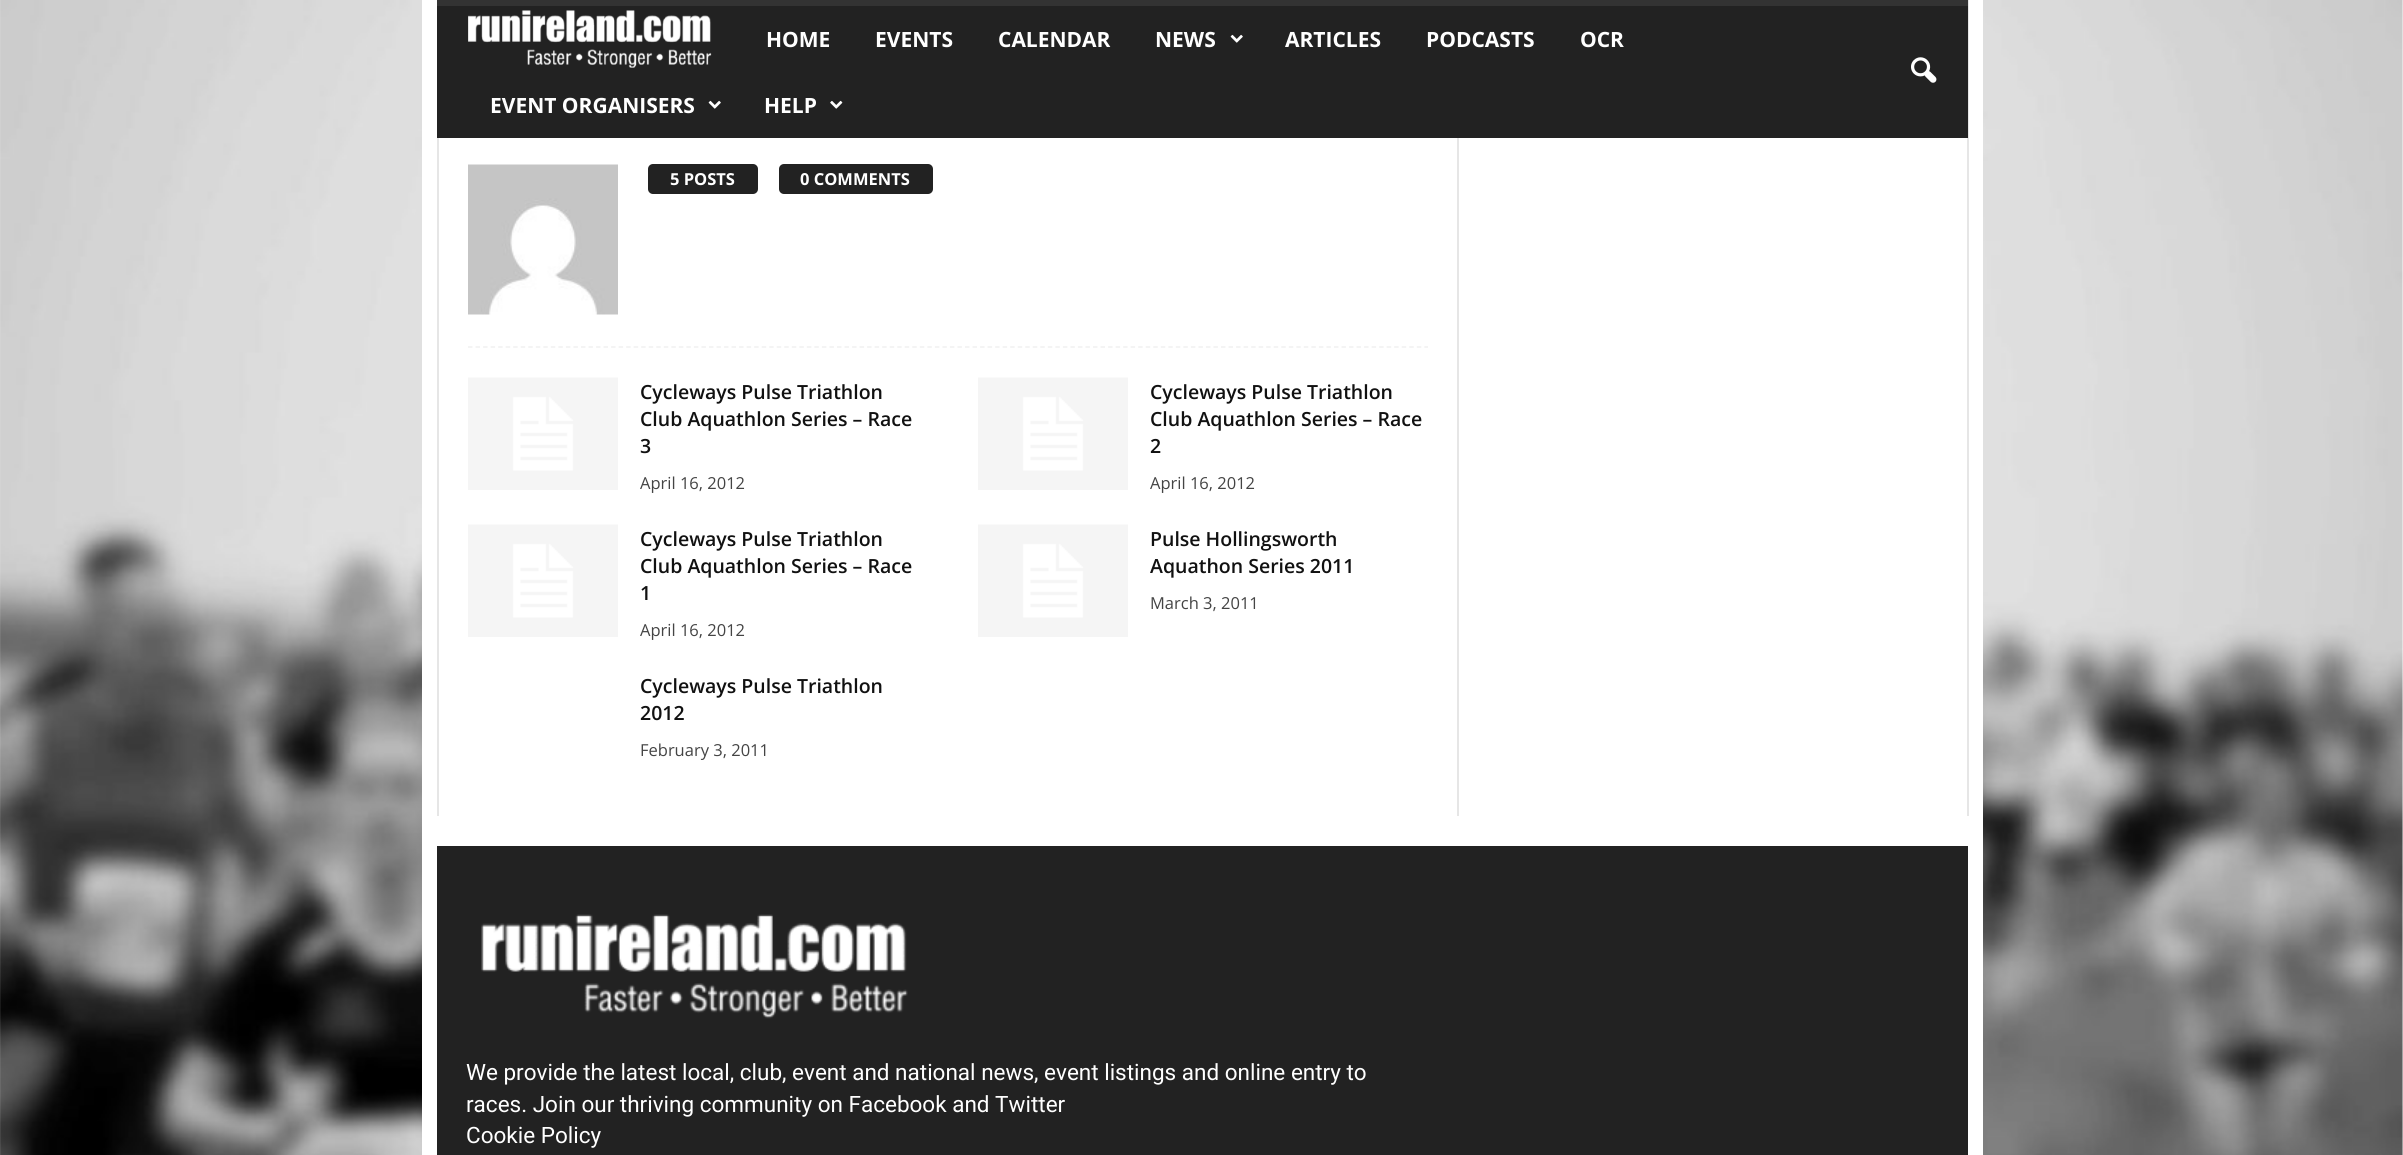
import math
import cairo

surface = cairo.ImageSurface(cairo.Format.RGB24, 2403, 1155)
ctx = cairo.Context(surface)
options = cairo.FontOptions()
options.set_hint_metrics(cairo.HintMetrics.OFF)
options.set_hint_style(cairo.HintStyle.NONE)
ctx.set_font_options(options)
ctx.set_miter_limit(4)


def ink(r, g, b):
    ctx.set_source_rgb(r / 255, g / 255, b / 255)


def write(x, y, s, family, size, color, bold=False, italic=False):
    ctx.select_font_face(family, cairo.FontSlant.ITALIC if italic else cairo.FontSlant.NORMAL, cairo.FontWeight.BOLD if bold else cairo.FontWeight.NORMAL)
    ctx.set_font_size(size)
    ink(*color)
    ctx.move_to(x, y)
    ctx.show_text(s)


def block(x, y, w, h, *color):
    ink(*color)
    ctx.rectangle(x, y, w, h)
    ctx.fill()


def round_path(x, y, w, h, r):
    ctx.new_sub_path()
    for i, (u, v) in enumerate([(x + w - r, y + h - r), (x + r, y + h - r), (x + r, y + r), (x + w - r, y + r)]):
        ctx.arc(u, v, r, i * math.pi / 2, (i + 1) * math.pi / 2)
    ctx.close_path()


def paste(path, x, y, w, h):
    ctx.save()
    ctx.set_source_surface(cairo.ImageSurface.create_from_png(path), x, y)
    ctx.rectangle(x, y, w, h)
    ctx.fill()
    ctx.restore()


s1 = dict(family="Open Sans", size=21, color=(255, 255, 255), bold=True)
s2 = dict(family="Open Sans", size=16.5, color=(255, 255, 255), bold=True)
s3 = dict(family="Open Sans SemiBold", size=19.5, color=(17, 17, 17))
s4 = dict(family="Open Sans", size=16.5, color=(68, 68, 68))
s5 = dict(family="Roboto", size=22.5, color=(255, 255, 255))

ink(255, 255, 255)
ctx.paint()
paste("pic1.png", 0, 0, 2403, 1155)
block(422, 0, 1561, 831, 255, 255, 255)
block(1967, 0, 2, 816, 230, 230, 230)
block(437, 6, 1531, 132, 34, 34, 34)
block(437, 0, 1531, 6, 51, 51, 51)
paste("pic2.png", 468, 10, 244, 58)
write(766, 47, "HOME", **s1)
write(875, 47, "EVENTS", **s1)
write(998, 47, "CALENDAR", **s1)
write(1155, 47, "NEWS", **s1)
paste("pic3.png", 1230, 34, 13, 9)
write(1285, 47, "ARTICLES", **s1)
write(1426, 47, "PODCASTS", **s1)
write(1580, 47, "OCR", **s1)
write(490, 113, "EVENT ORGANISERS", **s1)
paste("pic3.png", 708, 100, 13, 9)
write(764, 113, "HELP", **s1)
paste("pic4.png", 830, 100, 13, 9)
paste("pic5.png", 1911, 57, 26, 26)
block(437, 138, 2, 678, 230, 230, 230)
ctx.new_path()
ctx.move_to(468, 347)
ctx.line_to(1428, 347)
ink(241, 241, 241)
ctx.set_line_width(1.5)
ctx.set_dash([4.5, 3.03])
ctx.stroke()
paste("pic6.png", 468, 164, 150, 151)
ink(34, 34, 34)
round_path(648, 164, 110, 30, 5)
ctx.fill()
write(670, 185, "5 POSTS", **s2)
ink(34, 34, 34)
round_path(779, 164, 154, 30, 5)
ctx.fill()
write(800, 185, "0 COMMENTS", **s2)
paste("pic7.png", 468, 377, 150, 113)
write(640, 399, "Cycleways Pulse Triathlon", **s3)
write(640, 426, "Club Aquathlon Series – Race", **s3)
write(640, 453, "3", **s3)
write(640, 489, "April 16, 2012", **s4)
paste("pic7.png", 978, 377, 150, 113)
write(1150, 399, "Cycleways Pulse Triathlon", **s3)
write(1150, 426, "Club Aquathlon Series – Race", **s3)
write(1150, 453, "2", **s3)
write(1150, 489, "April 16, 2012", **s4)
paste("pic7.png", 468, 524, 150, 113)
write(640, 546, "Cycleways Pulse Triathlon", **s3)
write(640, 573, "Club Aquathlon Series – Race", **s3)
write(640, 600, "1", **s3)
write(640, 636, "April 16, 2012", **s4)
paste("pic7.png", 978, 524, 150, 113)
write(1150, 546, "Pulse Hollingsworth", **s3)
write(1150, 573, "Aquathon Series 2011", **s3)
write(1150, 609, "March 3, 2011", **s4)
write(640, 693, "Cycleways Pulse Triathlon", **s3)
write(640, 720, "2012", **s3)
write(640, 756, "February 3, 2011", **s4)
block(1457, 138, 2, 678, 230, 230, 230)
ink(34, 34, 34)
ctx.rectangle(429.5, 838.5, 1546, 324)
ctx.fill_preserve()
ink(255, 255, 255)
ctx.set_line_width(15)
ctx.set_dash([])
ctx.stroke()
paste("pic8.png", 481, 914, 427, 105)
write(466, 1080, "We provide the latest local, club, event and national news, event listings and online entry to", **s5)
write(466, 1112, "races. Join our thriving community on Facebook and Twitter", **s5)
write(466, 1143, "Cookie Policy", **s5)
surface.write_to_png("screenshot.png")
